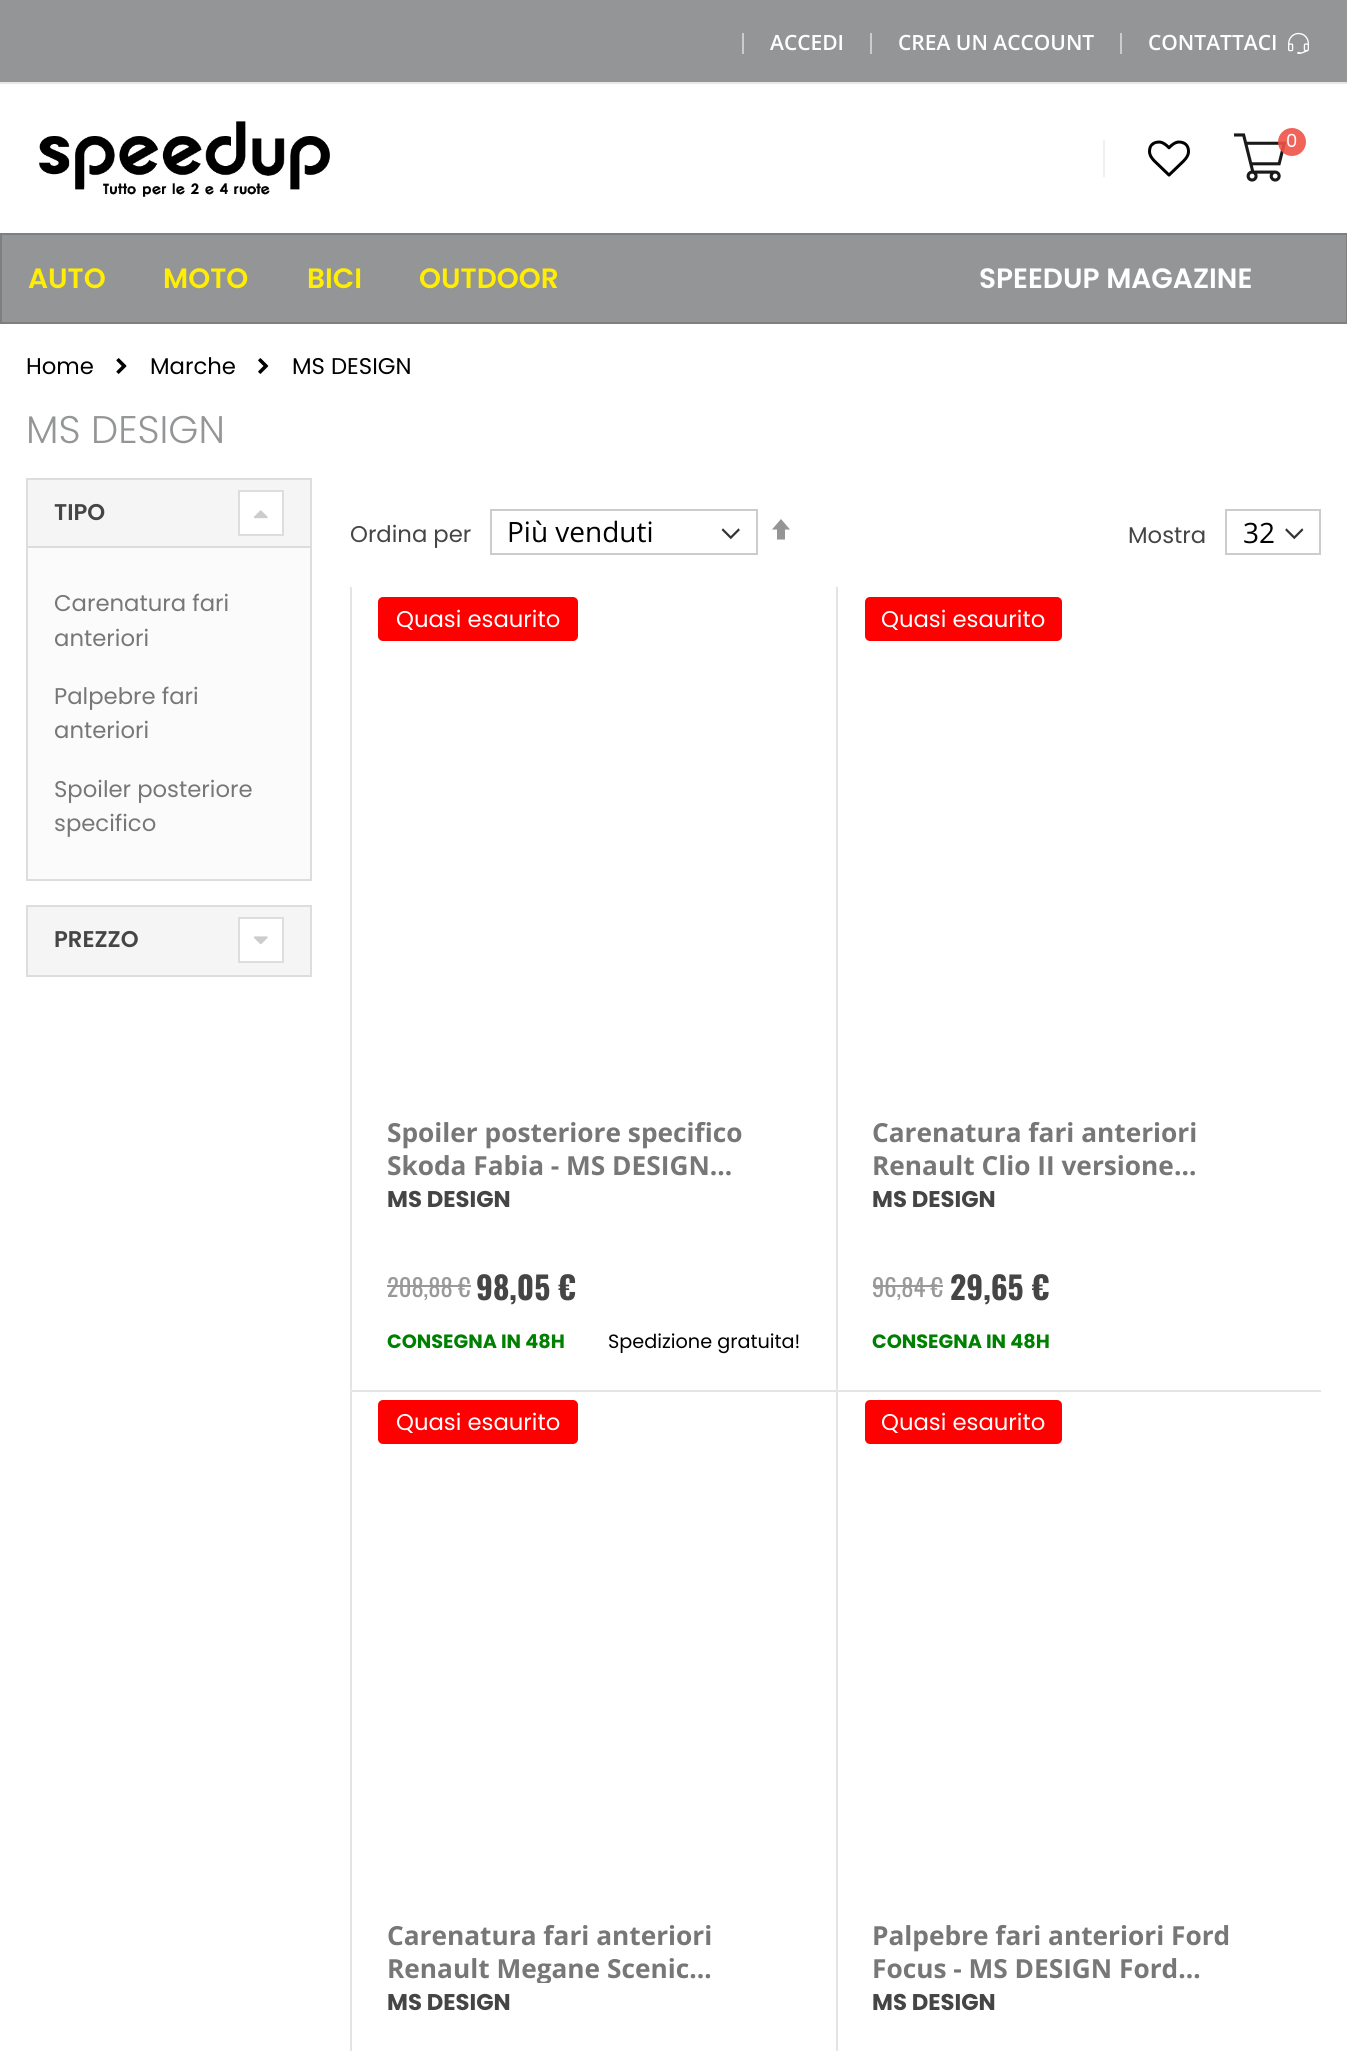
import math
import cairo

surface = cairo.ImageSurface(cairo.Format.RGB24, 1347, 2051)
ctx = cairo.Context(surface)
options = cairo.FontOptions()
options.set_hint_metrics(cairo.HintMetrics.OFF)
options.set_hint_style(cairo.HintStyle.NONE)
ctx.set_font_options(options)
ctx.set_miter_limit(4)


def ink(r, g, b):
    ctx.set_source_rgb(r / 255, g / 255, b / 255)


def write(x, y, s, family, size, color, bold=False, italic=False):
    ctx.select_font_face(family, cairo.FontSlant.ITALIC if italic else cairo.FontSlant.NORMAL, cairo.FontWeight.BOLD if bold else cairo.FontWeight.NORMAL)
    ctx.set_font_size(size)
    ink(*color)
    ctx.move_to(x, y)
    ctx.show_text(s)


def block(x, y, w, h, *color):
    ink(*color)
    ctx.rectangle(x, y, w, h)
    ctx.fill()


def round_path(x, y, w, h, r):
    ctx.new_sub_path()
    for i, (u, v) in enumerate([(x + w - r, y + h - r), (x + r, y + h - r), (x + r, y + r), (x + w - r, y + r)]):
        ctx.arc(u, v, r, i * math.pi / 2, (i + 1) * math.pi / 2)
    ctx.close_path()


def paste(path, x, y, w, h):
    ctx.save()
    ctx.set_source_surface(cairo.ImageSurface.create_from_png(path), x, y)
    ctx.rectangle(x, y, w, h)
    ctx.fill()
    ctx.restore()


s1 = dict(family="Open Sans SemiBold", size=21, color=(255, 255, 255))
s2 = dict(family="Poppins", size=18, color=(255, 255, 255))
s3 = dict(family="Poppins SemiBold", size=28, color=(255, 237, 3))
s4 = dict(family="Poppins SemiBold", size=28, color=(255, 255, 255))
s5 = dict(family="Poppins", size=22.75, color=(0, 0, 0))
s6 = dict(family="Poppins Light", size=38.5, color=(147, 149, 151))
s7 = dict(family="Poppins SemiBold", size=22.75, color=(69, 69, 69))
s8 = dict(family="Poppins", size=22.75, color=(119, 119, 119))
s9 = dict(family="Poppins", size=22.75, color=(69, 69, 69))
s10 = dict(family="Open Sans", size=28, color=(0, 0, 0))
s11 = dict(family="Poppins", size=22.75, color=(255, 255, 255))
s12 = dict(family="Open Sans", size=26.25, color=(119, 119, 119), bold=True)
s13 = dict(family="Poppins", size=22.75, color=(69, 69, 69), bold=True)
s14 = dict(family="Oswald", size=24.5, color=(153, 153, 153))
s15 = dict(family="Oswald", size=31.5, color=(69, 69, 69), bold=True)
s16 = dict(family="Poppins", size=19.25, color=(0, 128, 0), bold=True)
s17 = dict(family="Poppins", size=19.25, color=(0, 0, 0))

ink(255, 255, 255)
ctx.paint()
block(0, 0, 1347, 82, 147, 149, 151)
block(0, 82, 1347, 2, 231, 231, 231)
block(742, 33, 2, 21, 204, 204, 204)
write(770, 50, "ACCEDI", **s1)
block(870, 33, 2, 21, 204, 204, 204)
write(898, 50, "CREA UN ACCOUNT", **s1)
block(1120, 33, 2, 21, 204, 204, 204)
write(1148, 50, "CONTATTACI", **s1)
paste("pic1.png", 1288, 32, 21, 22)
paste("pic2.png", 39, 121, 291, 76)
block(1103, 140, 2, 37, 240, 240, 240)
paste("pic3.png", 1148, 140, 42, 37)
paste("pic4.png", 1234, 133, 52, 49)
ctx.set_source_rgba(0.929, 0.325, 0.282, 0.9)
ctx.arc(1292, 142, 14, 0, 2 * math.pi)
ctx.fill()
write(1286, 147, "0", **s2)
ink(147, 149, 151)
ctx.rectangle(1, 234, 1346, 89)
ctx.fill_preserve()
ink(125, 127, 128)
ctx.stroke()
write(28, 288, "AUTO", **s3)
write(163, 288, "MOTO", **s3)
write(307, 288, "BICI", **s3)
write(419, 288, "OUTDOOR", **s3)
write(979, 288, "SPEEDUP MAGAZINE", **s4)
write(26, 374, "Home", **s5)
paste("pic5.png", 116, 358, 11, 16)
write(150, 374, "Marche", **s5)
paste("pic6.png", 258, 358, 11, 16)
write(292, 374, "MS DESIGN", **s5)
write(26, 443, "MS DESIGN", **s6)
ink(245, 245, 245)
ctx.rectangle(27, 479, 284, 68)
ctx.fill_preserve()
ink(221, 221, 221)
ctx.stroke()
write(54, 520, "TIPO", **s7)
ink(255, 255, 255)
ctx.rectangle(239, 491, 44, 44)
ctx.fill_preserve()
ink(221, 221, 221)
ctx.stroke()
paste("pic7.png", 253, 510, 15, 9)
block(28, 548, 282, 331, 251, 251, 251)
block(310, 548, 2, 332, 221, 221, 221)
block(26, 879, 286, 2, 221, 221, 221)
block(26, 548, 2, 332, 221, 221, 221)
write(54, 611, "Carenatura fari", **s8)
write(54, 646, "anteriori", **s8)
write(54, 704, "Palpebre fari", **s8)
write(54, 738, "anteriori", **s8)
write(54, 797, "Spoiler posteriore", **s8)
write(54, 831, "specifico", **s8)
ink(245, 245, 245)
ctx.rectangle(27, 906, 284, 70)
ctx.fill_preserve()
ink(221, 221, 221)
ctx.stroke()
write(54, 947, "PREZZO", **s7)
ink(255, 255, 255)
ctx.rectangle(239, 918, 44, 44)
ctx.fill_preserve()
ink(221, 221, 221)
ctx.stroke()
paste("pic8.png", 253, 936, 15, 9)
write(350, 542, "Ordina per", **s9)
paste("pic9.png", 721, 528, 19, 12)
ctx.rectangle(491, 510, 266, 44)
ink(204, 204, 204)
ctx.stroke()
write(507, 542, "Più venduti", **s10)
ink(147, 149, 151)
ctx.new_path()
ctx.move_to(790, 529.5)
ctx.line_to(785, 529.5)
ctx.line_to(785, 539.5)
ctx.line_to(777, 539.5)
ctx.line_to(777, 529.5)
ctx.line_to(772, 529.5)
ctx.line_to(781, 519)
ctx.close_path()
ctx.fill()
write(1128, 543, "Mostra", **s9)
paste("pic10.png", 1285, 528, 19, 12)
ctx.rectangle(1226, 510, 94, 44)
ink(204, 204, 204)
ctx.stroke()
write(1243, 543, "32", **s10)
ink(227, 228, 228)
ctx.new_path()
ctx.move_to(350, 1391)
ctx.line_to(350, 586)
ctx.line_to(352, 588)
ctx.line_to(352, 1390)
ctx.close_path()
ctx.fill()
ink(255, 0, 0)
round_path(378, 597, 200, 44, 5)
ctx.fill()
write(396, 627, "Quasi esaurito", **s11)
write(387, 1142, "Spoiler posteriore specifico", **s12)
write(387, 1175, "Skoda Fabia - MS DESIGN…", **s12)
write(387, 1207, "MS DESIGN", **s13)
write(387, 1297, "208,88 €", **s14)
block(387, 1285, 84, 2, 153, 153, 153)
write(476, 1300, "98,05 €", **s15)
write(387, 1348, "CONSEGNA IN 48H", **s16)
write(608, 1348, "Spedizione gratuita!", **s17)
ink(227, 228, 228)
ctx.new_path()
ctx.move_to(836, 1391)
ctx.line_to(836, 586)
ctx.line_to(838, 588)
ctx.line_to(838, 1390)
ctx.close_path()
ctx.fill()
ink(255, 0, 0)
round_path(865, 597, 197, 44, 5)
ctx.fill()
write(881, 627, "Quasi esaurito", **s11)
write(872, 1142, "Carenatura fari anteriori", **s12)
write(872, 1175, "Renault Clio II versione…", **s12)
write(872, 1207, "MS DESIGN", **s13)
write(872, 1297, "96,84 €", **s14)
block(873, 1285, 70, 2, 153, 153, 153)
write(950, 1300, "29,65 €", **s15)
write(872, 1348, "CONSEGNA IN 48H", **s16)
ink(227, 228, 228)
ctx.new_path()
ctx.move_to(350, 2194)
ctx.line_to(350, 1390)
ctx.line_to(352, 1391)
ctx.line_to(352, 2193)
ctx.close_path()
ctx.fill()
block(352, 1390, 485, 2, 227, 228, 228)
ink(255, 0, 0)
round_path(378, 1400, 200, 44, 5)
ctx.fill()
write(396, 1430, "Quasi esaurito", **s11)
write(387, 1945, "Carenatura fari anteriori", **s12)
ctx.save()
ctx.rectangle(387, 1920, 415, 63)
ctx.clip()
write(387, 1978, "Renault Megane Scenic…", **s12)
ctx.restore()
write(387, 2010, "MS DESIGN", **s13)
ink(227, 228, 228)
ctx.new_path()
ctx.move_to(836, 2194)
ctx.line_to(836, 1390)
ctx.line_to(838, 1391)
ctx.line_to(838, 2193)
ctx.close_path()
ctx.fill()
block(838, 1390, 483, 2, 227, 228, 228)
ink(255, 0, 0)
round_path(865, 1400, 197, 44, 5)
ctx.fill()
write(881, 1430, "Quasi esaurito", **s11)
write(872, 1945, "Palpebre fari anteriori Ford", **s12)
write(872, 1978, "Focus - MS DESIGN Ford…", **s12)
write(872, 2010, "MS DESIGN", **s13)
surface.write_to_png("screenshot.png")
